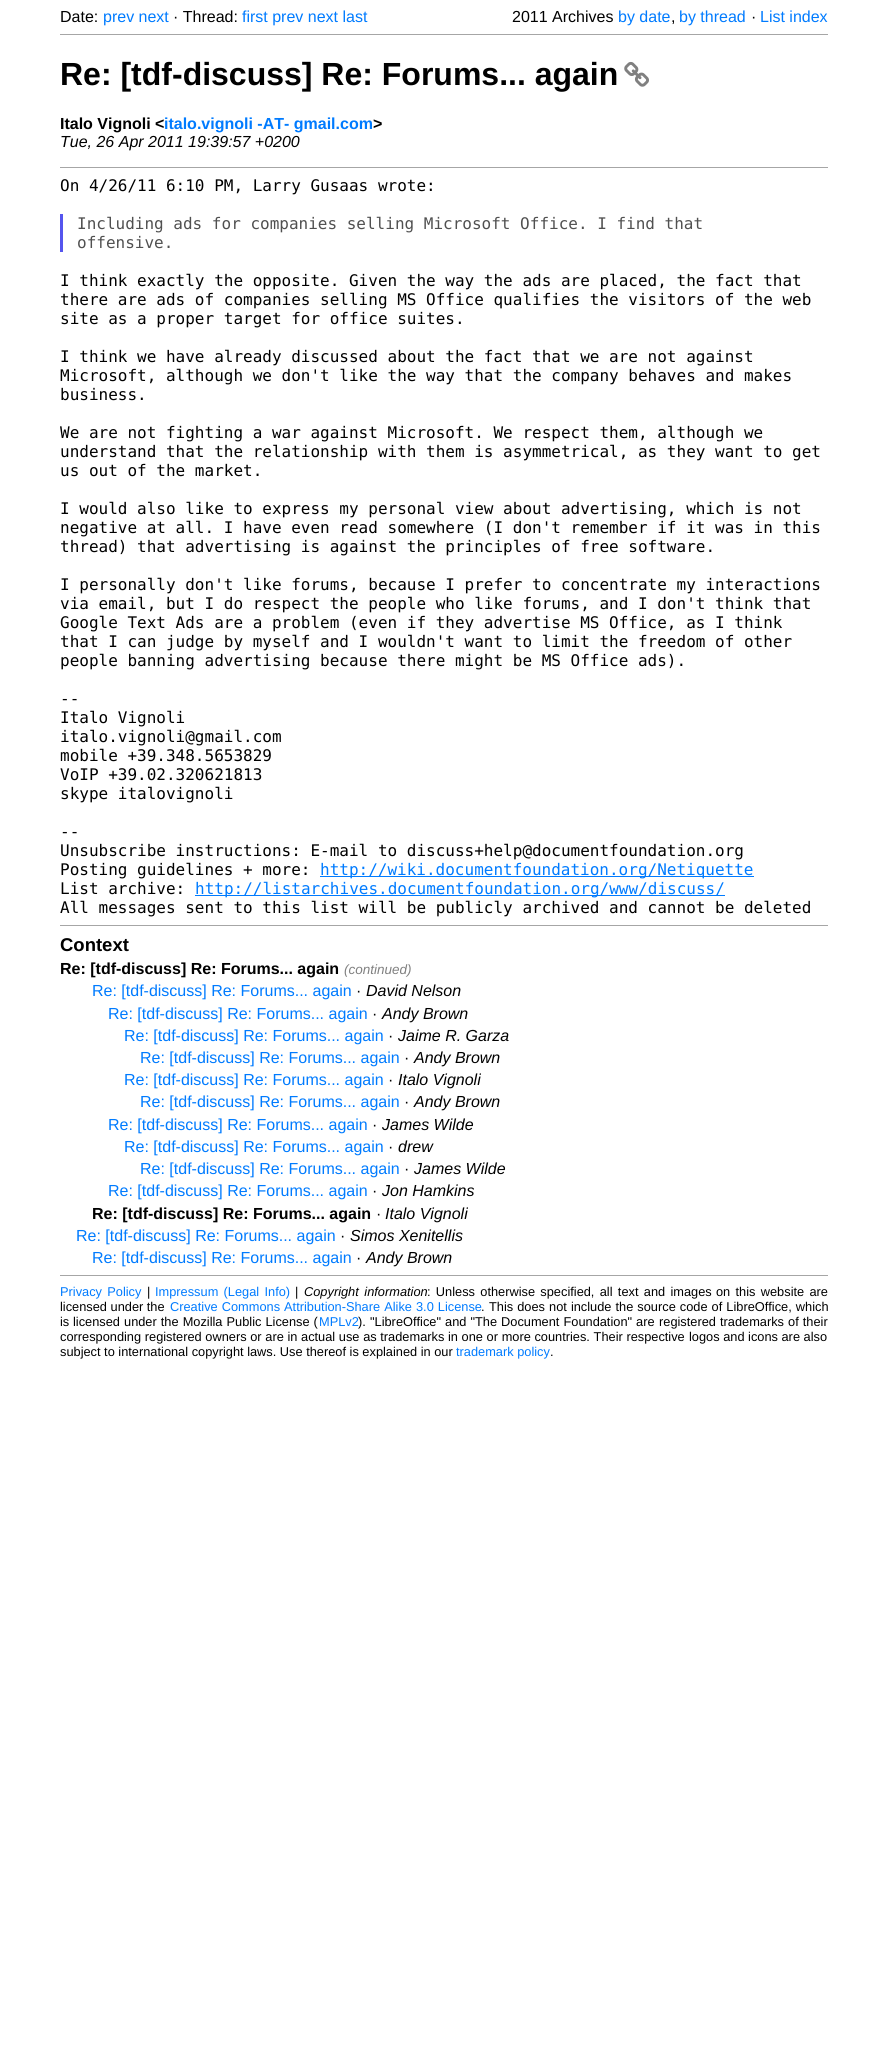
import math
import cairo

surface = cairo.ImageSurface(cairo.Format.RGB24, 888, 2057)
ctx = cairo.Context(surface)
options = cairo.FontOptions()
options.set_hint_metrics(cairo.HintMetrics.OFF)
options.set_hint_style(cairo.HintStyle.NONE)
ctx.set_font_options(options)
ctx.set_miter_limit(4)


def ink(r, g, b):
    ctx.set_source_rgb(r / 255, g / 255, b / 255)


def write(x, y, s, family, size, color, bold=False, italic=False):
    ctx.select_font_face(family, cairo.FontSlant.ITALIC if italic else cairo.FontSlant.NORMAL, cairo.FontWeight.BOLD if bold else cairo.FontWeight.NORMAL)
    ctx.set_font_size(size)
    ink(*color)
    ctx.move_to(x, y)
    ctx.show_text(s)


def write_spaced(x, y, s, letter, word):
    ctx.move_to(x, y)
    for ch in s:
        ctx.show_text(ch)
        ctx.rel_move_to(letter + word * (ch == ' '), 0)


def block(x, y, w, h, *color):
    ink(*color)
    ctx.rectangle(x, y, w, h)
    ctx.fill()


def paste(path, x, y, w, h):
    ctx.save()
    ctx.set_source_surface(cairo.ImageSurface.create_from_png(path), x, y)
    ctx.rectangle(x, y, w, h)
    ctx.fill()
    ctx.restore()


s1 = dict(family="Liberation Sans", size=16, color=(0, 0, 0))
s2 = dict(family="Liberation Sans", size=16, color=(0, 123, 255))
s3 = dict(family="Liberation Sans", size=32, color=(0, 0, 0), bold=True)
s4 = dict(family="Liberation Sans", size=16, color=(0, 0, 0), bold=True)
s5 = dict(family="Liberation Sans", size=16, color=(0, 123, 255), bold=True)
s6 = dict(family="Liberation Sans", size=16, color=(0, 0, 0), italic=True)
s7 = dict(family="DejaVu Sans Mono", size=16, color=(0, 0, 0))
s8 = dict(family="DejaVu Sans Mono", size=16, color=(80, 80, 80))
s9 = dict(family="DejaVu Sans Mono", size=16, color=(0, 123, 255))
s10 = dict(family="Liberation Sans", size=18.5, color=(0, 0, 0), bold=True)
s11 = dict(family="Liberation Sans", size=13.5, color=(128, 128, 128), italic=True)
s12 = dict(family="Liberation Sans", size=12.8, color=(0, 0, 0))
s13 = dict(family="Liberation Sans", size=12.8, color=(0, 123, 255))

ink(255, 255, 255)
ctx.paint()
write(60, 22, "Date:", **s1)
write(103, 22, "prev next", **s2)
write(173, 22, "· Thread:", **s1)
write(242, 22, "first prev next last", **s2)
write(512, 22, "2011 Archives", **s1)
write(618, 22, "by date", **s2)
write(679, 22, "by thread", **s2)
write(751, 22, "·", **s1)
write(760, 22, "List index", **s2)
write(671, 22, ",", **s1)
block(60, 34, 768, 1, 166, 166, 166)
write(60, 85, "Re: [tdf-discuss] Re: Forums... again", **s3)
paste("pic1.png", 624, 61, 25, 26)
write(60, 129, "Italo Vignoli <", **s4)
write(164, 129, "italo.vignoli -AT- gmail.com", **s5)
write(373, 129, ">", **s4)
write(60, 147, "Tue, 26 Apr 2011 19:39:57 +0200", **s6)
block(60, 167, 768, 1, 166, 166, 166)
write(60, 191, "On 4/26/11 6:10 PM, Larry Gusaas wrote:", **s7)
block(60, 214, 3, 38, 85, 85, 238)
write(77, 229, "Including ads for companies selling Microsoft Office. I find that", **s8)
write(77, 248, "offensive.", **s8)
write(60, 286, "I think exactly the opposite. Given the way the ads are placed, the fact that", **s7)
write(60, 305, "there are ads of companies selling MS Office qualifies the visitors of the web", **s7)
write(60, 324, "site as a proper target for office suites.", **s7)
write(60, 362, "I think we have already discussed about the fact that we are not against", **s7)
write(60, 381, "Microsoft, although we don't like the way that the company behaves and makes", **s7)
write(60, 400, "business.", **s7)
write(60, 438, "We are not fighting a war against Microsoft. We respect them, although we", **s7)
write(60, 457, "understand that the relationship with them is asymmetrical, as they want to get", **s7)
write(60, 476, "us out of the market.", **s7)
write(60, 514, "I would also like to express my personal view about advertising, which is not", **s7)
write(60, 533, "negative at all. I have even read somewhere (I don't remember if it was in this", **s7)
write(60, 552, "thread) that advertising is against the principles of free software.", **s7)
write(60, 590, "I personally don't like forums, because I prefer to concentrate my interactions", **s7)
write(60, 609, "via email, but I do respect the people who like forums, and I don't think that", **s7)
write(60, 628, "Google Text Ads are a problem (even if they advertise MS Office, as I think", **s7)
write(60, 647, "that I can judge by myself and I wouldn't want to limit the freedom of other", **s7)
write(60, 666, "people banning advertising because there might be MS Office ads).", **s7)
write(60, 704, "--", **s7)
write(60, 723, "Italo Vignoli", **s7)
write(60, 742, "italo.vignoli@gmail.com", **s7)
write(60, 761, "mobile +39.348.5653829", **s7)
write(60, 780, "VoIP +39.02.320621813", **s7)
write(60, 799, "skype italovignoli", **s7)
write(60, 837, "--", **s7)
write(60, 856, "Unsubscribe instructions: E-mail to discuss+help@documentfoundation.org", **s7)
write(60, 875, "Posting guidelines + more:", **s7)
block(320, 876, 434, 1, 0, 123, 255)
write(320, 875, "http://wiki.documentfoundation.org/Netiquette", **s9)
write(60, 894, "List archive:", **s7)
block(195, 895, 530, 1, 0, 123, 255)
write(195, 894, "http://listarchives.documentfoundation.org/www/discuss/", **s9)
write(60, 913, "All messages sent to this list will be publicly archived and cannot be deleted", **s7)
block(60, 925, 768, 1, 166, 166, 166)
write(60, 951, "Context", **s10)
write(60, 974, "Re: [tdf-discuss] Re: Forums... again", **s4)
write(344, 974, "(continued)", **s11)
write(92, 996, "Re: [tdf-discuss] Re: Forums... again", **s2)
write(356, 996, "·", **s1)
write(366, 996, "David Nelson", **s6)
write(108, 1019, "Re: [tdf-discuss] Re: Forums... again", **s2)
write(372, 1019, "·", **s1)
write(382, 1019, "Andy Brown", **s6)
write(124, 1041, "Re: [tdf-discuss] Re: Forums... again", **s2)
write(388, 1041, "·", **s1)
write(398, 1041, "Jaime R. Garza", **s6)
write(140, 1063, "Re: [tdf-discuss] Re: Forums... again", **s2)
write(404, 1063, "·", **s1)
write(414, 1063, "Andy Brown", **s6)
write(124, 1085, "Re: [tdf-discuss] Re: Forums... again", **s2)
write(388, 1085, "·", **s1)
write(398, 1085, "Italo Vignoli", **s6)
write(140, 1107, "Re: [tdf-discuss] Re: Forums... again", **s2)
write(404, 1107, "·", **s1)
write(414, 1107, "Andy Brown", **s6)
write(108, 1130, "Re: [tdf-discuss] Re: Forums... again", **s2)
write(372, 1130, "·", **s1)
write(382, 1130, "James Wilde", **s6)
write(124, 1152, "Re: [tdf-discuss] Re: Forums... again", **s2)
write(388, 1152, "·", **s1)
write(398, 1152, "drew", **s6)
write(140, 1174, "Re: [tdf-discuss] Re: Forums... again", **s2)
write(404, 1174, "·", **s1)
write(414, 1174, "James Wilde", **s6)
write(108, 1196, "Re: [tdf-discuss] Re: Forums... again", **s2)
write(372, 1196, "·", **s1)
write(382, 1196, "Jon Hamkins", **s6)
write(92, 1219, "Re: [tdf-discuss] Re: Forums... again", **s4)
write(376, 1219, "·", **s1)
write(385, 1219, "Italo Vignoli", **s6)
write(76, 1241, "Re: [tdf-discuss] Re: Forums... again", **s2)
write(340, 1241, "·", **s1)
write(350, 1241, "Simos Xenitellis", **s6)
write(92, 1263, "Re: [tdf-discuss] Re: Forums... again", **s2)
write(356, 1263, "·", **s1)
write(366, 1263, "Andy Brown", **s6)
block(60, 1275, 768, 1, 166, 166, 166)
ctx.select_font_face("Liberation Sans")
ctx.set_font_size(12.8)
ink(0, 123, 255)
write_spaced(60, 1296, "Privacy Policy", 0, 1.75)
write(147, 1296, "|", **s12)
ink(0, 123, 255)
write_spaced(155, 1296, "Impressum (Legal Info)", 0, 1.75)
write(295, 1296, "|", **s12)
ctx.select_font_face("Liberation Sans", cairo.FontSlant.ITALIC)
write_spaced(304, 1296, "Copyright information", 0, 2)
ctx.select_font_face("Liberation Sans")
write_spaced(427, 1296, ": Unless otherwise specified, all text and images", 0, 1.75)
write_spaced(716, 1296, "on this website are", 0, 1.75)
write(60, 1311, "licensed under the", **s12)
ink(0, 123, 255)
write_spaced(170, 1311, "Creative Commons Attribution-Share Alike 3.0 License", 0, 0.5)
write(481, 1311, ".", **s12)
write_spaced(489, 1311, "This does not include the source code of LibreOffice, which", 0, 0.5)
write(60, 1326, "is", **s12)
write_spaced(73, 1326, "licensed under the Mozilla Public License (", 0, 0.5)
write(319, 1326, "MPLv2", **s13)
write(358, 1326, ").", **s12)
write_spaced(370, 1326, "\"LibreOffice\" and \"The Document Foundation\" are", 0, 0.5)
write_spaced(659, 1326, "registered trademarks of their", 0, 0.5)
write_spaced(60, 1341, "corresponding registered owners or are in actual use as trademarks in one or more countries. Their respective", 0, 0.1)
write(689, 1341, "logos and icons are also", **s12)
write(60, 1356, "subject to international copyright laws. Use thereof is explained in our", **s12)
write(456, 1356, "trademark policy", **s13)
write(550, 1356, ".", **s12)
surface.write_to_png("screenshot.png")
